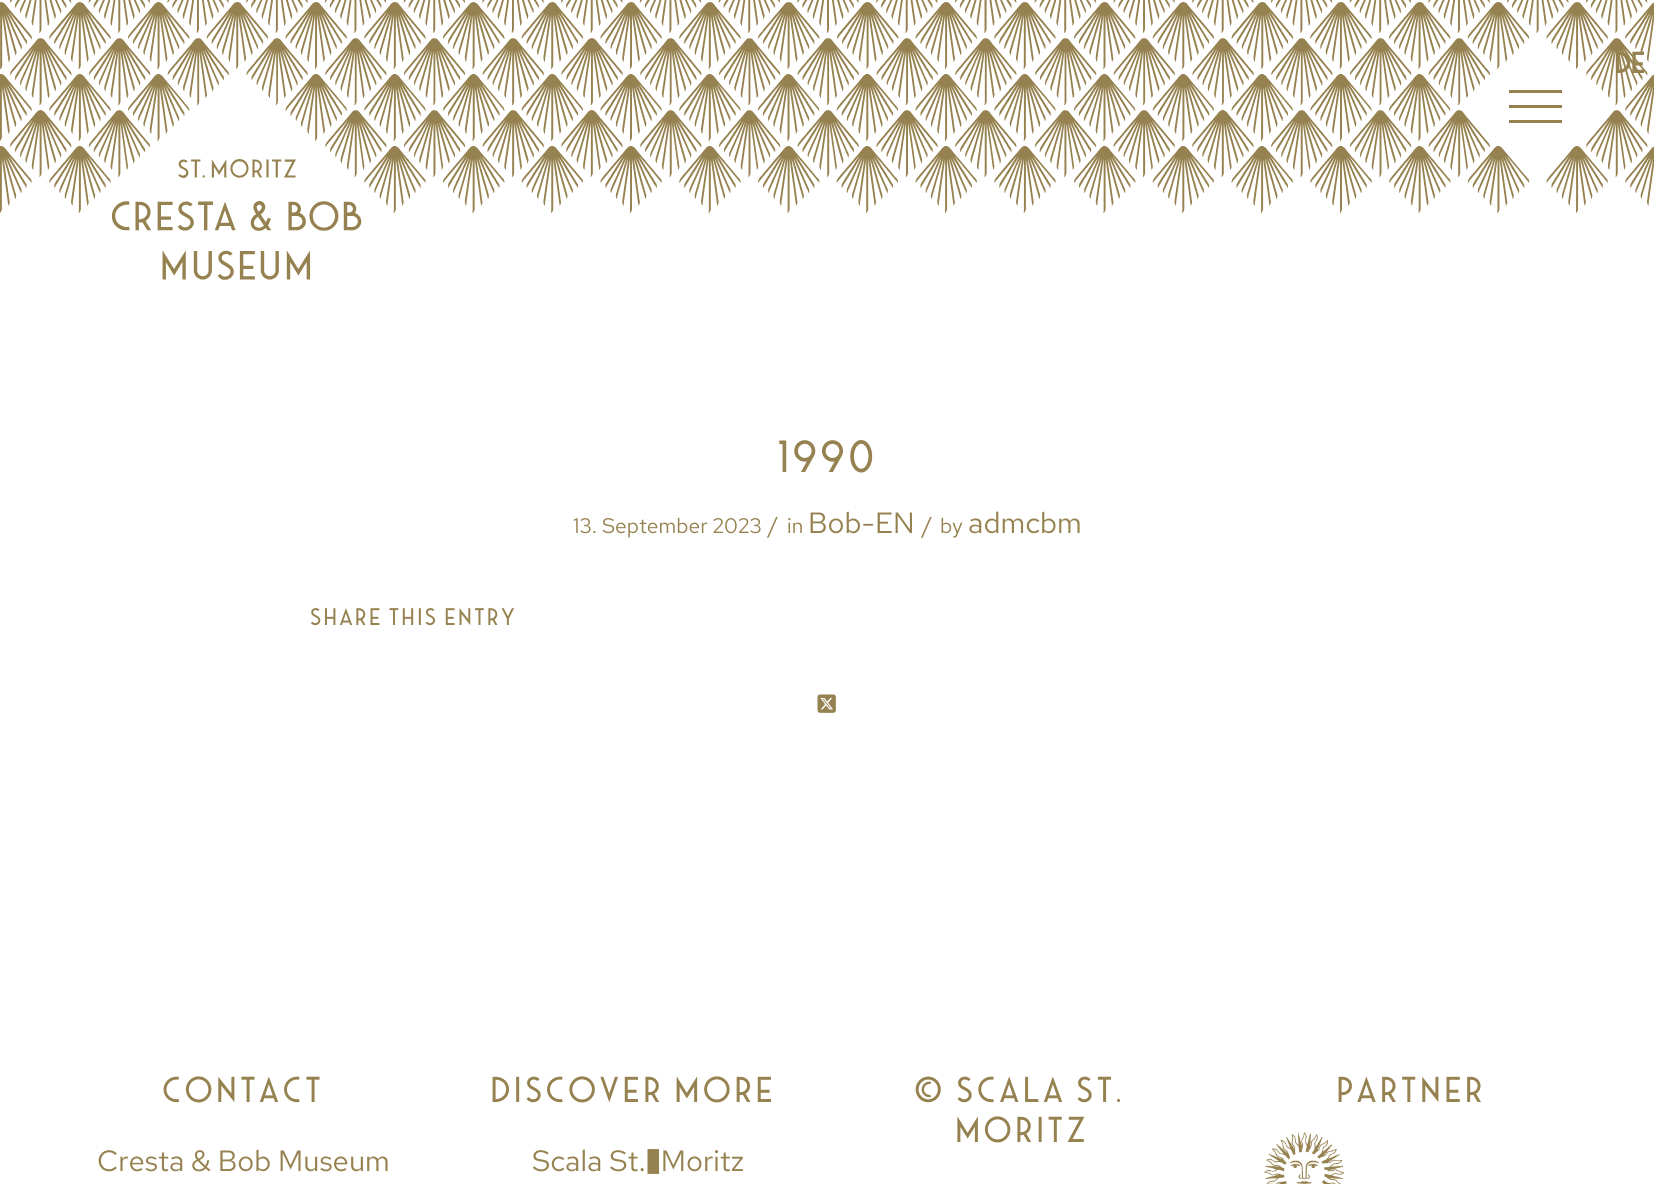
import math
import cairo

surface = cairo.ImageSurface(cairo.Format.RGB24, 1654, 1184)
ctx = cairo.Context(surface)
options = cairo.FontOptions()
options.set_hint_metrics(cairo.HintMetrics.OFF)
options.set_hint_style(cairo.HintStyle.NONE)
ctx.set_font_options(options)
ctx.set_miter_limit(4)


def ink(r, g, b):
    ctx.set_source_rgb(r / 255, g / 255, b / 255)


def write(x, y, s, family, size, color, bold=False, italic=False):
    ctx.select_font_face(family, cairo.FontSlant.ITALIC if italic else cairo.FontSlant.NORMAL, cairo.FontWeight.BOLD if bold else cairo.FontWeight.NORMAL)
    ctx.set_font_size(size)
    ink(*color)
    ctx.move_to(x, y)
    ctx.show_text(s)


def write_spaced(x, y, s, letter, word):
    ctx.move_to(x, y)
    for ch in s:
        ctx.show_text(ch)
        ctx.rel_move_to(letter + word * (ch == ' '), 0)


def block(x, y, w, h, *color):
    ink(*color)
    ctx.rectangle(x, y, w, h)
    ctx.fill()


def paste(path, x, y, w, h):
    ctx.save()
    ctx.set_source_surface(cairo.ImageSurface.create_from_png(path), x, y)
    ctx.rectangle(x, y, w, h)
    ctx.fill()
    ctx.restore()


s1 = dict(family="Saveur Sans", size=29.25, color=(150, 130, 80), bold=True)
s2 = dict(family="Red Hat Text", size=21, color=(150, 130, 80))
s3 = dict(family="Red Hat Text", size=23, color=(150, 130, 80))
s4 = dict(family="Red Hat Text", size=29.25, color=(150, 130, 80))

ink(255, 255, 255)
ctx.paint()
paste("pic1.png", 0, 0, 1654, 280)
write(1614, 73, "DE", **s1)
block(1509, 105, 53, 3, 150, 130, 80)
block(1509, 90, 53, 3, 150, 130, 80)
block(1509, 120, 53, 3, 150, 130, 80)
ctx.select_font_face("Saveur Sans")
ctx.set_font_size(45)
write_spaced(777, 472, "1990", 4.5, 0)
write(573, 533, "13. September 2023", **s2)
write(768, 533, "/", **s3)
write(787, 533, "in", **s2)
write(808, 533, "Bob-EN", **s4)
write(922, 533, "/", **s3)
write(940, 533, "by", **s2)
write(968, 533, "admcbm", **s4)
ctx.select_font_face("Saveur Sans")
ctx.set_font_size(24)
write_spaced(310, 625, "Share this entry", 2.4, -4)
paste("pic2.png", 817, 694, 19, 19)
ctx.set_font_size(36)
write_spaced(162, 1102, "CONTACT", 3.6, 0)
write(97, 1171, "Cresta & Bob Museum", **s4)
ctx.select_font_face("Saveur Sans")
ctx.set_font_size(36)
write_spaced(490, 1102, "DISCOVER MORE", 3.6, -5)
write(532, 1171, "Scala St. Moritz", **s4)
ctx.select_font_face("Saveur Sans")
ctx.set_font_size(36)
write_spaced(914, 1102, "© SCALA ST.", 3.6, -5)
write_spaced(955, 1142, "MORITZ", 3.6, 0)
write_spaced(1336, 1102, "PARTNER", 3.6, 0)
paste("pic3.png", 1264, 1132, 81, 52)
surface.write_to_png("screenshot.png")
